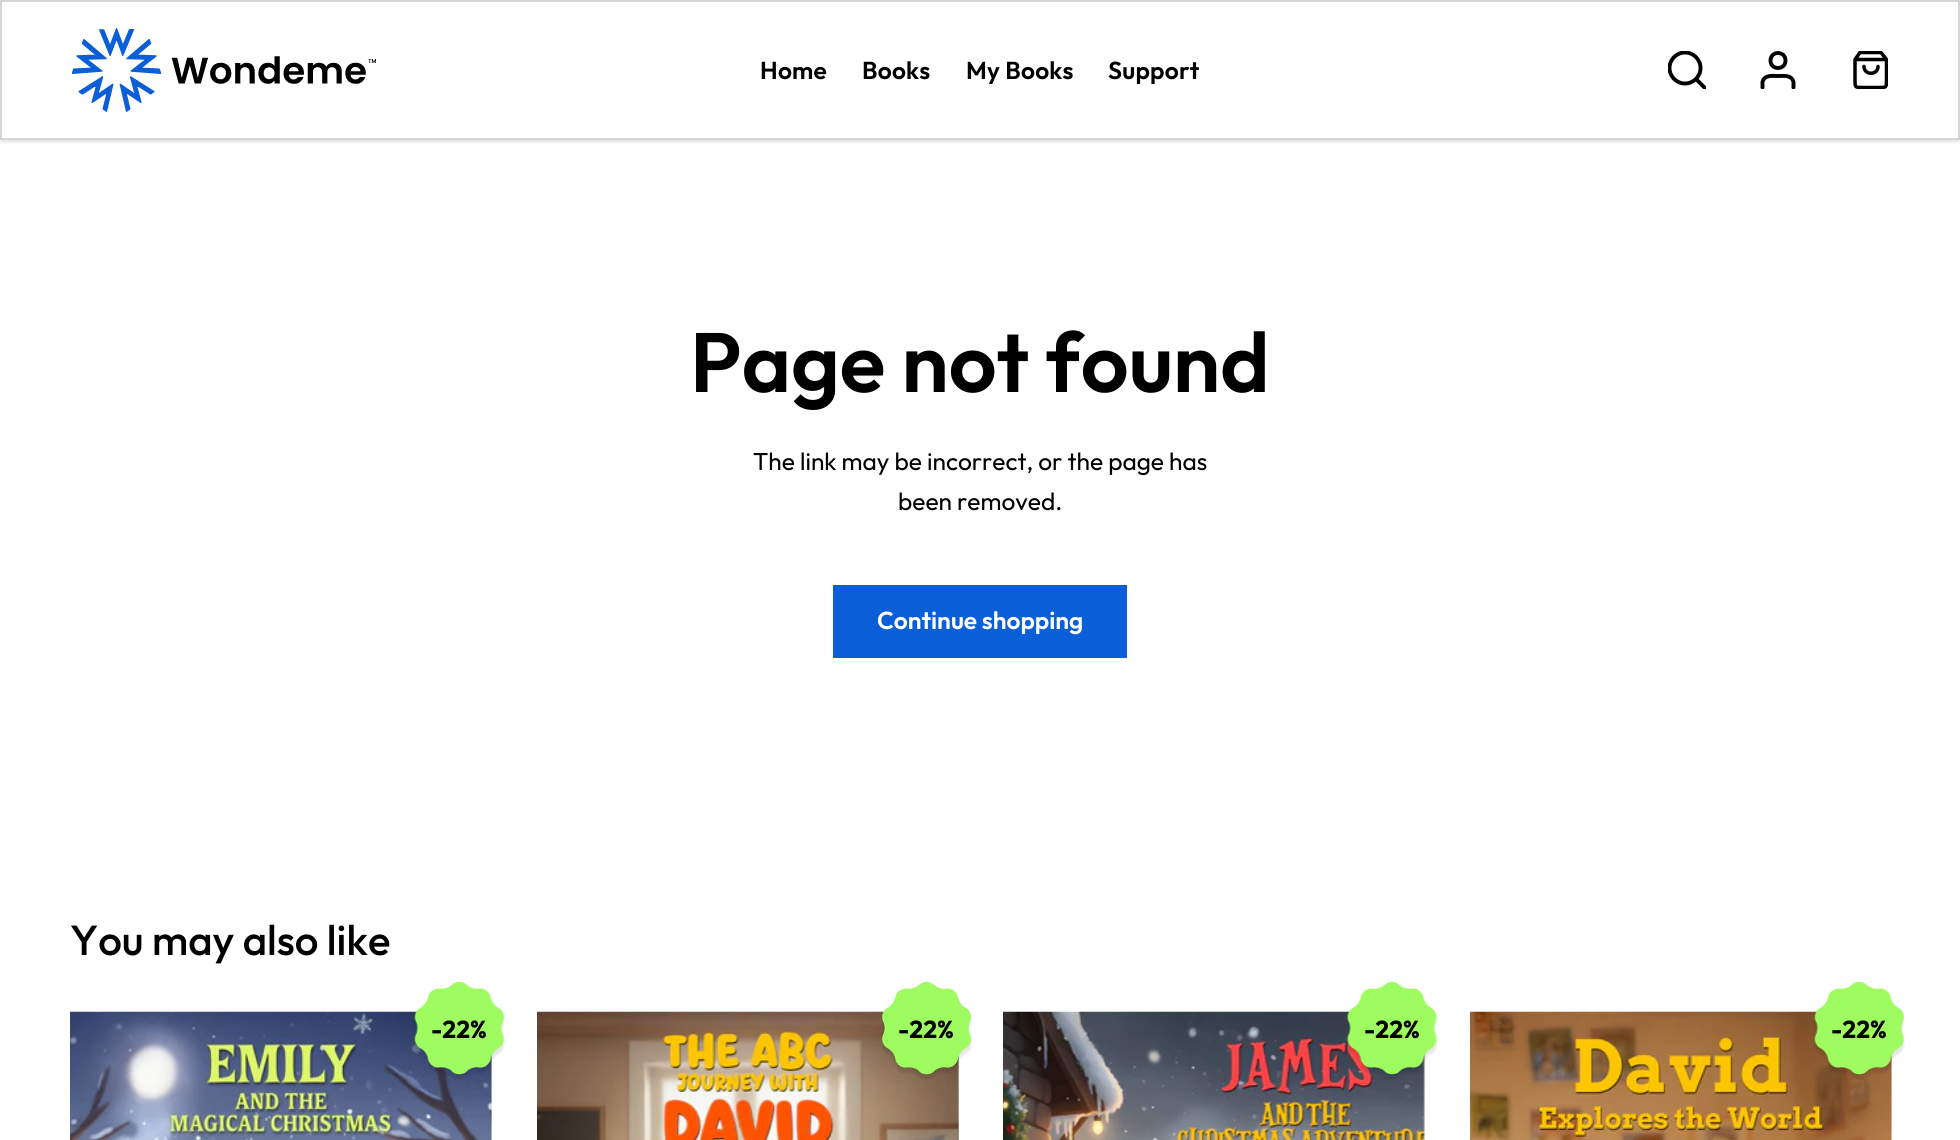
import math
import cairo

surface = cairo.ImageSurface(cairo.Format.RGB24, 1960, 1140)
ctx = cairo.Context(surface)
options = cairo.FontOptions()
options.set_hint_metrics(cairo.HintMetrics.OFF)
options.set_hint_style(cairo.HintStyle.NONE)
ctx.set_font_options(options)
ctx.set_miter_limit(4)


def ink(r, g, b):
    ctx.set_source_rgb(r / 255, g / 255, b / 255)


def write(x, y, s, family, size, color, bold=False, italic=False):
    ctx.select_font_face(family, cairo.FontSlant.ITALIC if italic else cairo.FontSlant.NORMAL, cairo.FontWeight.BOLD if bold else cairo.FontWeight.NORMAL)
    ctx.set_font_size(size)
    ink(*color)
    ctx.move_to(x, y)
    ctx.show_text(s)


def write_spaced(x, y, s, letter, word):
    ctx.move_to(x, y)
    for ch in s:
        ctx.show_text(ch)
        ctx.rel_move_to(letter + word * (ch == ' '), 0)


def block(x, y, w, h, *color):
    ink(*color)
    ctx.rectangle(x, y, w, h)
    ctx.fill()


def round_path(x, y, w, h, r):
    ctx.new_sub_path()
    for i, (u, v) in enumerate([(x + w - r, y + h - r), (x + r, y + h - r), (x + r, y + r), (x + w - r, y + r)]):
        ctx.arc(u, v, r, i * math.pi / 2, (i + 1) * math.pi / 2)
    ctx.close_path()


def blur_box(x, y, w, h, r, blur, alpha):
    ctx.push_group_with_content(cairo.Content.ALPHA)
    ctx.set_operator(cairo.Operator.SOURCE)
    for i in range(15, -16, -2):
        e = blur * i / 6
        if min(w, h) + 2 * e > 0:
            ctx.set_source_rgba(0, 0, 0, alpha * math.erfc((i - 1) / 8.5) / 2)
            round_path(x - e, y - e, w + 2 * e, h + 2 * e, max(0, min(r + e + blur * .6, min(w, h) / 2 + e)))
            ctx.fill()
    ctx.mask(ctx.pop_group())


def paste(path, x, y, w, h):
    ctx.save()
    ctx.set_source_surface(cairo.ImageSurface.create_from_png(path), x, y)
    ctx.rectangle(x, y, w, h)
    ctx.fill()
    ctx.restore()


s1 = dict(family="Outfit SemiBold", size=84, color=(0, 0, 0))
s2 = dict(family="Outfit", size=24.5, color=(0, 0, 0))
s3 = dict(family="Outfit SemiBold", size=24.5, color=(255, 255, 255))
s4 = dict(family="Outfit Medium", size=42, color=(0, 0, 0))
s5 = dict(family="Outfit", size=24.5, color=(0, 0, 0), bold=True)

ink(255, 255, 255)
ctx.paint()
ctx.save()
ctx.rectangle(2, 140, 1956, 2)
ctx.clip()
ink(0, 0, 0)
blur_box(2, 4, 1956, 136, 0, 2, 0.1)
ctx.restore()
ctx.save()
ctx.rectangle(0, 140, 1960, 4)
ctx.clip()
ink(0, 0, 0)
blur_box(0, 2, 1960, 140, 0, 2.5, 0.1)
ctx.restore()
ctx.rectangle(1, 1, 1958, 138)
ink(214, 214, 214)
ctx.stroke()
paste("pic1.png", 72, 28, 304, 84)
ctx.select_font_face("Outfit SemiBold")
ctx.set_font_size(24.5)
ink(0, 0, 0)
write_spaced(760, 79, "Home", 0.25, 0)
write_spaced(862, 79, "Books", 0.25, 0)
write_spaced(966, 79, "My Books", 0.25, 0)
write_spaced(1108, 79, "Support", 0.25, 0)
ctx.save()
ctx.rectangle(1668, 51, 38, 38)
ctx.clip()
ctx.new_path()
ctx.move_to(1704.5, 87.5)
ctx.line_to(1696, 79)
ctx.move_to(1700.5, 68)
ctx.curve_to(1700.5, 76.5, 1693.5, 83.5, 1685, 83.5)
ctx.curve_to(1676.5, 83.5, 1669.5, 76.5, 1669.5, 68)
ctx.curve_to(1669.5, 59.5, 1676.5, 52.5, 1685, 52.5)
ctx.curve_to(1693.5, 52.5, 1700.5, 59.5, 1700.5, 68)
ctx.close_path()
ctx.set_line_width(3.9)
ctx.set_line_cap(cairo.LineCap.ROUND)
ctx.set_line_join(cairo.LineJoin.ROUND)
ctx.stroke()
ctx.restore()
ctx.save()
ctx.rectangle(1759, 51, 38, 38)
ctx.clip()
ctx.new_path()
ctx.move_to(1793.5, 87.5)
ctx.line_to(1793.5, 82)
ctx.curve_to(1791.5, 74.5, 1783.5, 76, 1778, 76)
ctx.curve_to(1772.5, 76, 1764.5, 74.5, 1762.5, 82)
ctx.line_to(1762.5, 87.5)
ctx.move_to(1785.5, 60.5)
ctx.curve_to(1785.5, 70.5, 1770.5, 70.5, 1770.5, 60.5)
ctx.curve_to(1770.5, 50.5, 1785.5, 50.5, 1785.5, 60.5)
ctx.close_path()
ctx.set_line_width(3.9)
ctx.set_line_cap(cairo.LineCap.ROUND)
ctx.set_line_join(cairo.LineJoin.ROUND)
ctx.stroke()
ctx.restore()
ctx.save()
ctx.rectangle(1850, 51, 38, 38)
ctx.clip()
ctx.new_path()
ctx.move_to(1855, 59.5)
ctx.line_to(1860, 52.5)
ctx.line_to(1881, 52.5)
ctx.line_to(1886.5, 59.5)
ctx.move_to(1855, 59.5)
ctx.line_to(1855, 80)
ctx.curve_to(1855, 87.5, 1855, 87.5, 1862.5, 87.5)
ctx.line_to(1879, 87.5)
ctx.curve_to(1886.5, 87.5, 1886.5, 87.5, 1886.5, 80)
ctx.line_to(1886.5, 59.5)
ctx.move_to(1855, 59.5)
ctx.line_to(1886.5, 59.5)
ctx.move_to(1878, 66.5)
ctx.curve_to(1878, 75.5, 1864, 75.5, 1864, 66.5)
ctx.set_line_width(3.5)
ctx.set_line_cap(cairo.LineCap.ROUND)
ctx.set_line_join(cairo.LineJoin.ROUND)
ctx.stroke()
ctx.restore()
write(690, 392, "Page not found", **s1)
write(753, 470, "The link may be incorrect, or the page has", **s2)
write(898, 510, "been removed.", **s2)
block(833, 585, 294, 73, 10, 94, 216)
write(877, 629, "Continue shopping", **s3)
write(70, 955, "You may also like", **s4)
paste("pic2.png", 70, 1011, 422, 129)
paste("pic3.png", 414, 981, 91, 99)
write(431, 1038, "-22%", **s5)
paste("pic4.png", 537, 1011, 422, 129)
paste("pic5.png", 882, 981, 90, 99)
write(898, 1038, "-22%", **s5)
paste("pic6.png", 1003, 1011, 422, 129)
paste("pic7.png", 1347, 981, 90, 99)
write(1364, 1038, "-22%", **s5)
paste("pic8.png", 1470, 1011, 422, 129)
paste("pic9.png", 1814, 981, 91, 99)
write(1831, 1038, "-22%", **s5)
surface.write_to_png("screenshot.png")
